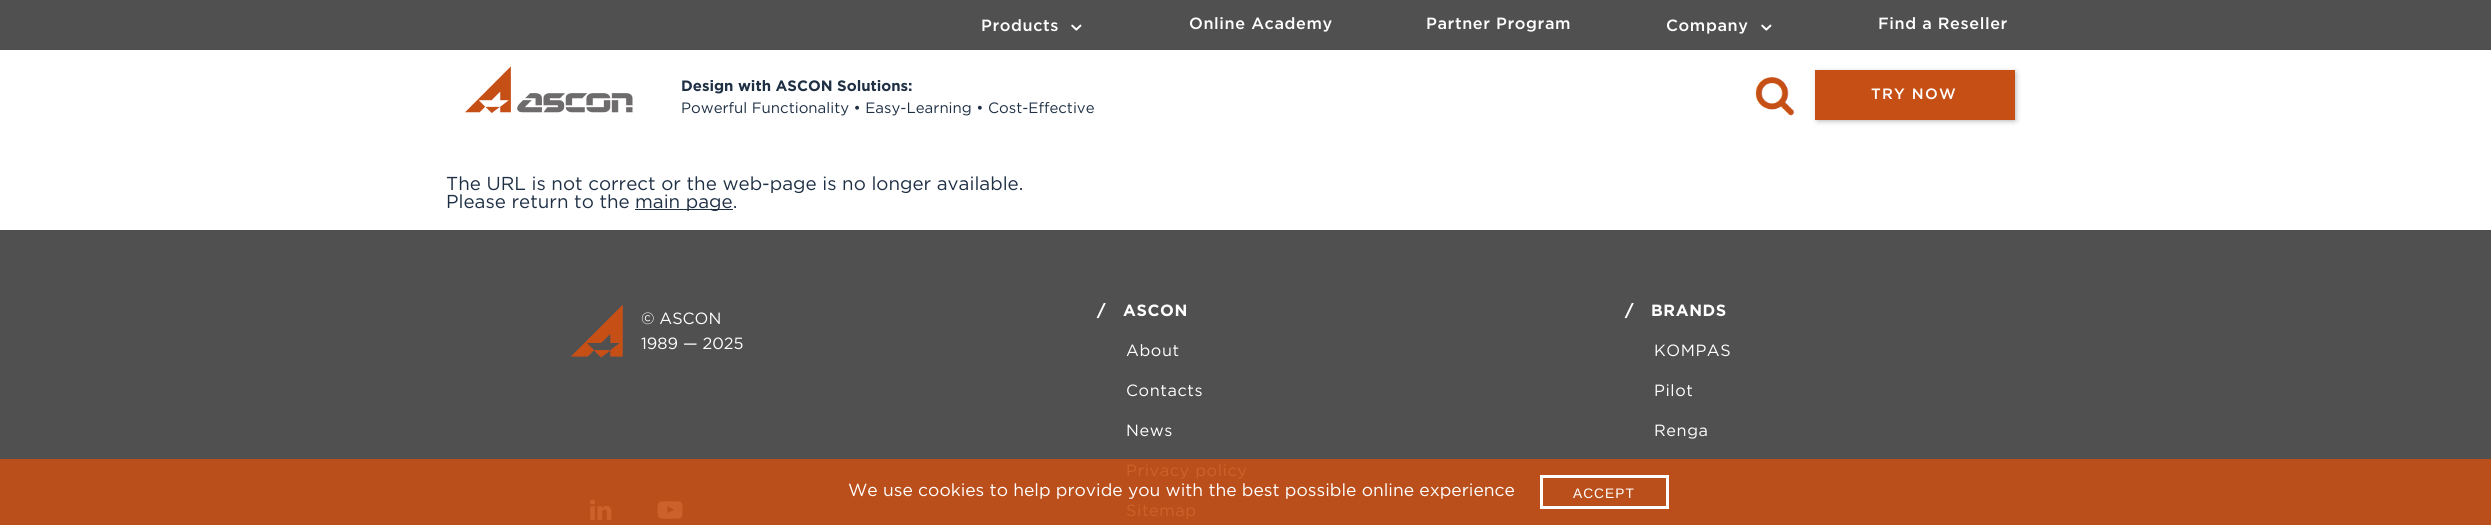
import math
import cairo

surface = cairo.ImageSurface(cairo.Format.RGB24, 2491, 525)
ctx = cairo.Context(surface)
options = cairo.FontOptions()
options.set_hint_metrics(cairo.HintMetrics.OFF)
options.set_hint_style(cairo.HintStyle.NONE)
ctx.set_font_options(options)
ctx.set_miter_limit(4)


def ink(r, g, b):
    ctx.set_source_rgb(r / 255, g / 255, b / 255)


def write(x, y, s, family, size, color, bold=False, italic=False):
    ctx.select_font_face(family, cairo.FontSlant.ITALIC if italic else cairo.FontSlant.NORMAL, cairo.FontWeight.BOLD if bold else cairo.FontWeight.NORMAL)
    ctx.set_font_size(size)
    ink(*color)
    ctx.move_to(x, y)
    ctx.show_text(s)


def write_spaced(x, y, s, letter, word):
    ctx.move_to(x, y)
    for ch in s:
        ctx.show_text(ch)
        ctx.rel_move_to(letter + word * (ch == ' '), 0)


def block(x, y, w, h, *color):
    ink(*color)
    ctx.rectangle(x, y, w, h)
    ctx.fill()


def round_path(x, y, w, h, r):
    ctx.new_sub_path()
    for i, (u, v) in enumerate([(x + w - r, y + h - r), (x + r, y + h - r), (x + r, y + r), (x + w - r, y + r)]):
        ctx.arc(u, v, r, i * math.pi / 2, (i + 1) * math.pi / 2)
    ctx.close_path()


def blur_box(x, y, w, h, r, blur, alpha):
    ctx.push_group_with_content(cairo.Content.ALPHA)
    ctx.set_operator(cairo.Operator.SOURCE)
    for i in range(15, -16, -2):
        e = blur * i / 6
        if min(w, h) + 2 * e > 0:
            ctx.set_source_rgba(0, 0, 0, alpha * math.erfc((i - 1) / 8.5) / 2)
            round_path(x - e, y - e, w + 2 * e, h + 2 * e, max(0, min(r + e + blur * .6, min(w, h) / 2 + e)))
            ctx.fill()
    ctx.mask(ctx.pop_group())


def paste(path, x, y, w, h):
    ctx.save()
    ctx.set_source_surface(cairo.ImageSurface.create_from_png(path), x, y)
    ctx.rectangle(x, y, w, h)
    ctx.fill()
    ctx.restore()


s1 = dict(family="Gotham", size=15, color=(31, 48, 69), bold=True)
s2 = dict(family="Gotham", size=15, color=(31, 48, 69))
s3 = dict(family="Gotham", size=17.5, color=(255, 255, 255))
s4 = dict(family="Gotham", size=18.75, color=(31, 48, 69))
s5 = dict(family="Gotham", size=16.25, color=(255, 255, 255))

ink(255, 255, 255)
ctx.paint()
block(0, 0, 2491, 50, 80, 80, 80)
ctx.select_font_face("Gotham Medium")
ctx.set_font_size(16.25)
ink(255, 255, 255)
write_spaced(981, 31, "Products", 0.6, 0)
paste("pic1.png", 1071, 24, 11, 7)
write_spaced(1189, 29, "Online Academy", 0.6, 0)
write_spaced(1426, 29, "Partner Program", 0.6, 0)
write_spaced(1666, 31, "Company", 0.6, 0)
paste("pic1.png", 1761, 24, 11, 7)
write_spaced(1878, 29, "Find a Reseller", 0.6, 0)
paste("pic2.png", 465, 66, 168, 47)
write(681, 91, "Design with ASCON Solutions:", **s1)
write(681, 113, "Powerful Functionality • Easy-Learning • Cost-Effective", **s2)
paste("pic3.png", 1755, 77, 40, 39)
ink(0, 0, 0)
blur_box(1818, 73, 197, 47, 0, 3, 0.4)
block(1815, 70, 200, 50, 198, 79, 21)
ctx.select_font_face("Gotham Medium")
ink(255, 255, 255)
write_spaced(1871, 99, "TRY NOW", 1.25, 0)
block(0, 459, 2491, 66, 186, 79, 27)
write(848, 496, "We use cookies to help provide you with the best possible online experience", **s3)
ctx.rectangle(1541.5, 476.5, 126, 31)
ctx.set_line_width(3)
ctx.stroke()
ctx.select_font_face("Liberation Sans")
ctx.set_font_size(13.75)
write_spaced(1573, 498, "ACCEPT", 1, 0)
write(446, 190, "The URL is not correct or the web-page is no longer available.", **s4)
write(446, 208, "Please return to the", **s4)
block(635, 209, 98, 1, 31, 48, 69)
write(635, 208, "main page.", **s4)
block(0, 230, 2491, 229, 80, 80, 80)
paste("pic4.png", 571, 305, 52, 53)
write(641, 324, "© ASCON", **s5)
write(641, 349, "1989 — 2025", **s5)
paste("pic5.png", 590, 499, 22, 22)
paste("pic6.png", 657, 501, 26, 18)
ctx.select_font_face("Gotham", cairo.FontSlant.NORMAL, cairo.FontWeight.BOLD)
write_spaced(1097, 316, "/", 0.6, 0)
write_spaced(1123, 316, "ASCON", 0.6, 0)
ctx.select_font_face("Gotham")
write_spaced(1126, 356, "About", 0.6, 0)
write_spaced(1126, 396, "Contacts", 0.6, 0)
write_spaced(1126, 436, "News", 0.6, 0)
ink(204, 97, 44)
write_spaced(1126, 476, "Privacy policy", 0.6, 0)
write_spaced(1126, 516, "Sitemap", 0.6, 0)
ctx.select_font_face("Gotham", cairo.FontSlant.NORMAL, cairo.FontWeight.BOLD)
ink(255, 255, 255)
write_spaced(1625, 316, "/", 0.6, 0)
write_spaced(1651, 316, "BRANDS", 0.6, 0)
ctx.select_font_face("Gotham")
write_spaced(1654, 356, "KOMPAS", 0.6, 0)
write_spaced(1654, 396, "Pilot", 0.6, 0)
write_spaced(1654, 436, "Renga", 0.6, 0)
surface.write_to_png("screenshot.png")
